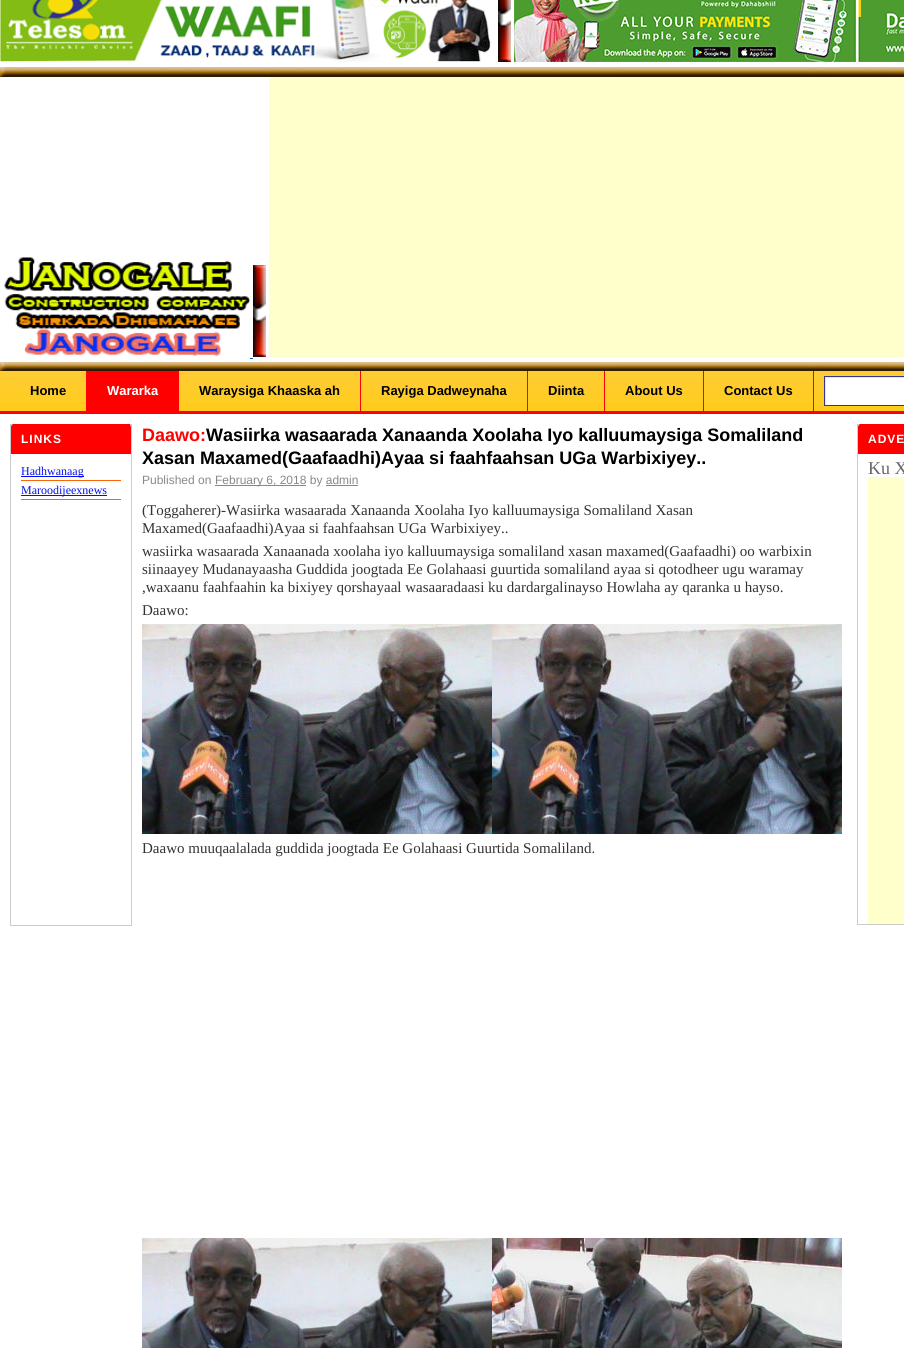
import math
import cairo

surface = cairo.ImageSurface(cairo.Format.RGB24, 904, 1348)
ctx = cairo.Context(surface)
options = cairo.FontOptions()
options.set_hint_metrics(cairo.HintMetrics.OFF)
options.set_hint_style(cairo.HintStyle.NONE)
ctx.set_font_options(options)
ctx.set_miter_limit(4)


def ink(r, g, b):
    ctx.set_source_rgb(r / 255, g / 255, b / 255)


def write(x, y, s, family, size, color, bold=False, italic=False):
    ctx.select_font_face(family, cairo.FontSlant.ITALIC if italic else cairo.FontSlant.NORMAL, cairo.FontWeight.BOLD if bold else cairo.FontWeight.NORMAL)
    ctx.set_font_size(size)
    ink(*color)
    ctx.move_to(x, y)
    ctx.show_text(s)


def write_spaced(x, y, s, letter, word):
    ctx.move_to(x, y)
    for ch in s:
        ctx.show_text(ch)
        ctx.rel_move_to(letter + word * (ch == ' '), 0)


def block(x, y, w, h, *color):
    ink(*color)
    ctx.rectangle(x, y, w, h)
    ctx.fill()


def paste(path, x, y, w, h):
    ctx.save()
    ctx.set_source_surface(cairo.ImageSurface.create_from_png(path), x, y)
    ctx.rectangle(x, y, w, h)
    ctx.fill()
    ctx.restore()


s1 = dict(family="Liberation Sans", size=13, color=(0, 0, 0), bold=True)
s2 = dict(family="Liberation Sans", size=13, color=(255, 255, 255), bold=True)
s3 = dict(family="Liberation Serif", size=12, color=(5, 16, 235))
s4 = dict(family="Liberation Sans", size=18, color=(255, 0, 0), bold=True)
s5 = dict(family="Liberation Sans", size=18, color=(0, 0, 0), bold=True)
s6 = dict(family="Liberation Sans", size=12, color=(136, 136, 136))
s7 = dict(family="Liberation Serif", size=15, color=(51, 51, 51))
s8 = dict(family="Liberation Serif", size=18, color=(102, 102, 102))

ink(255, 255, 255)
ctx.paint()
paste("pic1.png", 0, 0, 491, 62)
paste("pic2.png", 498, 0, 13, 62)
paste("pic3.png", 514, 0, 390, 62)
paste("pic4.png", 0, 67, 904, 10)
paste("pic5.png", 4, 257, 246, 99)
paste("pic6.png", 253, 265, 13, 92)
block(269, 77, 635, 280, 255, 255, 204)
block(250, 358, 3, 1, 0, 102, 204)
paste("pic7.png", 0, 362, 904, 9)
paste("pic8.png", 0, 371, 904, 40)
block(0, 411, 904, 3, 255, 0, 0)
block(86, 371, 93, 40, 255, 0, 0)
write(30, 395, "Home", **s1)
write(107, 395, "Wararka", **s2)
block(360, 371, 1, 40, 255, 0, 0)
write(199, 395, "Waraysiga Khaaska ah", **s1)
block(527, 371, 1, 40, 255, 0, 0)
write(381, 395, "Rayiga Dadweynaha", **s1)
block(604, 371, 1, 40, 255, 0, 0)
write(548, 395, "Diinta", **s1)
block(703, 371, 1, 40, 255, 0, 0)
write(625, 395, "About Us", **s1)
block(813, 371, 1, 40, 255, 0, 0)
write(724, 395, "Contact Us", **s1)
block(826, 378, 78, 27, 255, 255, 255)
ctx.save()
ctx.rectangle(825, 377, 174, 28)
ctx.clip()
ink(230, 230, 230)
ctx.set_fill_rule(cairo.FillRule.EVEN_ODD)
ctx.new_path()
ctx.move_to(726, 278)
ctx.line_to(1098, 278)
ctx.line_to(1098, 504)
ctx.line_to(726, 504)
ctx.close_path()
ctx.move_to(826, 378)
ctx.line_to(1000, 378)
ctx.line_to(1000, 406)
ctx.line_to(826, 406)
ctx.close_path()
ctx.fill()
ctx.restore()
ctx.rectangle(824.5, 376.5, 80, 29)
ink(51, 51, 153)
ctx.set_line_width(1)
ctx.stroke()
ctx.rectangle(10.5, 424.5, 121, 501)
ink(204, 204, 204)
ctx.stroke()
ink(255, 0, 0)
ctx.new_path()
ctx.move_to(14, 424)
ctx.line_to(128, 424)
ctx.curve_to(129.5, 424, 131, 425.5, 131, 427)
ctx.line_to(131, 454)
ctx.line_to(11, 454)
ctx.line_to(11, 427)
ctx.curve_to(11, 425.5, 12.5, 424, 14, 424)
ctx.close_path()
ctx.fill()
block(13, 424, 117, 1, 255, 0, 0)
ctx.set_font_size(12)
ink(255, 255, 255)
write_spaced(21, 443, "LINKS", 1, 0)
block(21, 480, 100, 1, 250, 103, 6)
block(21, 476, 63, 1, 5, 16, 235)
write(21, 475, "Hadhwanaag", **s3)
block(21, 499, 100, 1, 250, 103, 6)
block(21, 495, 86, 1, 5, 16, 235)
write(21, 494, "Maroodijeexnews", **s3)
write(142, 441, "Daawo:", **s4)
write(206, 441, "Wasiirka wasaarada Xanaanda Xoolaha Iyo kalluumaysiga Somaliland", **s5)
write(142, 464, "Xasan Maxamed(Gaafaadhi)Ayaa si faahfaahsan UGa Warbixiyey..", **s5)
write(142, 484, "Published on", **s6)
block(215, 485, 91, 1, 136, 136, 136)
write(215, 484, "February 6, 2018 by admin", **s6)
block(326, 485, 32, 1, 136, 136, 136)
write(142, 515, "(Toggaherer)-Wasiirka wasaarada Xanaanda Xoolaha Iyo kalluumaysiga Somaliland Xasan", **s7)
write(142, 533, "Maxamed(Gaafaadhi)Ayaa si faahfaahsan UGa Warbixiyey..", **s7)
write(142, 556, "wasiirka wasaarada Xanaanada xoolaha iyo kalluumaysiga somaliland xasan maxamed(Gaafaadhi) oo warbixin", **s7)
write(142, 574, "siinaayey Mudanayaasha Guddida joogtada Ee Golahaasi guurtida somaliland ayaa si qotodheer ugu waramay", **s7)
write(142, 592, ",waxaanu faahfaahin ka bixiyey qorshayaal wasaaradaasi ku dardargalinayso Howlaha ay qaranka u hayso.", **s7)
write(142, 615, "Daawo:", **s7)
paste("pic9.png", 142, 624, 350, 210)
paste("pic9.png", 492, 624, 350, 210)
write(142, 853, "Daawo muuqaalalada guddida joogtada Ee Golahaasi Guurtida Somaliland.", **s7)
paste("pic10.png", 142, 1238, 350, 110)
paste("pic11.png", 492, 1238, 350, 110)
ctx.rectangle(857.5, 424.5, 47, 500)
ink(204, 204, 204)
ctx.stroke()
ink(255, 0, 0)
ctx.new_path()
ctx.move_to(861, 424)
ctx.line_to(904, 424)
ctx.curve_to(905.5, 424, 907, 425.5, 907, 427)
ctx.line_to(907, 454)
ctx.line_to(858, 454)
ctx.line_to(858, 427)
ctx.curve_to(858, 425.5, 859.5, 424, 861, 424)
ctx.close_path()
ctx.fill()
block(860, 424, 1, 1, 255, 0, 0)
ctx.select_font_face("Liberation Sans", cairo.FontSlant.NORMAL, cairo.FontWeight.BOLD)
ctx.set_font_size(12)
ink(255, 255, 255)
write_spaced(868, 443, "ADVE", 1, 0)
write(868, 474, "Ku X", **s8)
block(868, 477, 36, 447, 255, 255, 204)
surface.write_to_png("screenshot.png")
